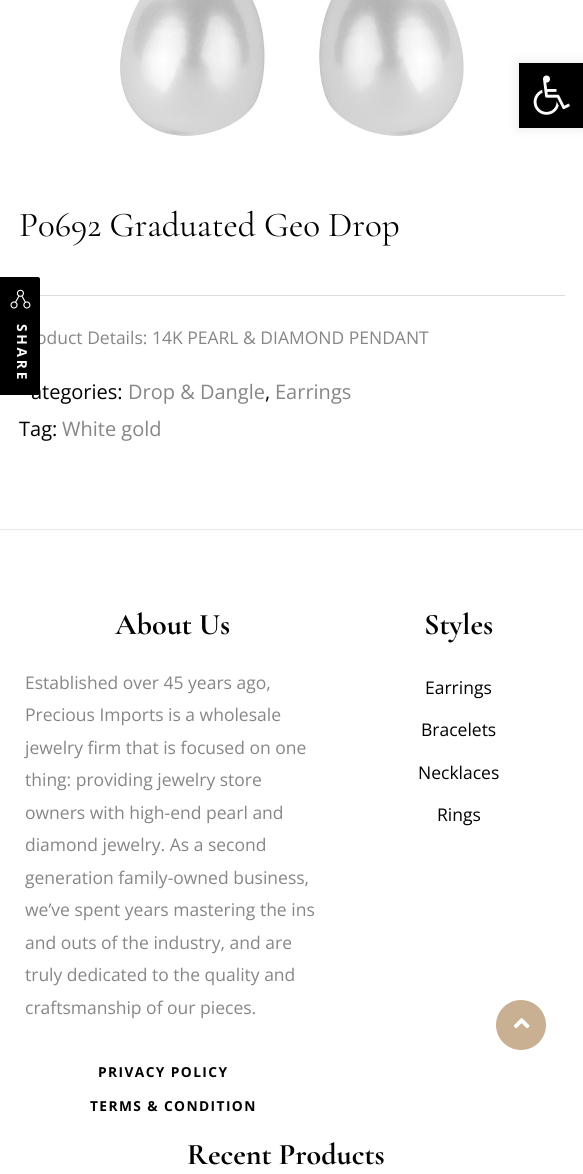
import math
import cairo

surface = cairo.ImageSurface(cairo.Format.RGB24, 583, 1174)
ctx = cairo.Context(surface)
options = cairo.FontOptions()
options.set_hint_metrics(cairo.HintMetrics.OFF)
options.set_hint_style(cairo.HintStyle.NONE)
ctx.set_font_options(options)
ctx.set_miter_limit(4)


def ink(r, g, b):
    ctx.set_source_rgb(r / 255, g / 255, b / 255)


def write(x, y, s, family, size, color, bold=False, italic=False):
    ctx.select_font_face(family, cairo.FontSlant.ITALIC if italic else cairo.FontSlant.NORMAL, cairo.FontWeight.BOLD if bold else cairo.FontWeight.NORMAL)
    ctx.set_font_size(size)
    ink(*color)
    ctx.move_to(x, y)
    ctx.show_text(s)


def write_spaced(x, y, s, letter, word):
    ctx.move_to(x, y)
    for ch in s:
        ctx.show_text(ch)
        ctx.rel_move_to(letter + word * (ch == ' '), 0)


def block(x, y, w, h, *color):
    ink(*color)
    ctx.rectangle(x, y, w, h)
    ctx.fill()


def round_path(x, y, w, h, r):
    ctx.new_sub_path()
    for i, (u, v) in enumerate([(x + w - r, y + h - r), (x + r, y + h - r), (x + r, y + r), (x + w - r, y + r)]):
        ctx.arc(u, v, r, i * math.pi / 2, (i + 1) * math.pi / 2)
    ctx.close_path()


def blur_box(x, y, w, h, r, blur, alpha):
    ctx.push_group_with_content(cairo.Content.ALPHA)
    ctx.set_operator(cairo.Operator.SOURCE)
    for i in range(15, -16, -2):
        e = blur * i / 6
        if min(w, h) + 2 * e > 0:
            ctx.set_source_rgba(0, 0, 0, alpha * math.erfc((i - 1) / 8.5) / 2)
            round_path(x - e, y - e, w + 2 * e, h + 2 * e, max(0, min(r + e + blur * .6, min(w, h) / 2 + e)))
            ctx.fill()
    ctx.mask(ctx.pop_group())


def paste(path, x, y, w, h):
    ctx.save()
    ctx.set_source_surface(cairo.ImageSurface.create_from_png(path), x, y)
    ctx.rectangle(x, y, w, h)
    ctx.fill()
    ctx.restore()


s1 = dict(family="Cormorant Garamond", size=35, color=(0, 0, 0))
s2 = dict(family="Open Sans", size=17.5, color=(134, 134, 134))
s3 = dict(family="Open Sans", size=20, color=(0, 0, 0))
s4 = dict(family="Open Sans", size=20, color=(134, 134, 134))
s5 = dict(family="Cormorant Garamond", size=30, color=(0, 0, 0), bold=True)
s6 = dict(family="Open Sans", size=17.5, color=(0, 0, 0))

ink(255, 255, 255)
ctx.paint()
ink(0, 0, 0)
blur_box(519, 63, 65, 65, 0, 6, 0.1)
block(519, 63, 64, 65, 0, 0, 0)
paste("pic1.png", 533, 75, 37, 40)
paste("pic2.png", 120, 0, 344, 136)
write(19, 236, "P0692 Graduated Geo Drop", **s1)
block(40, 295, 525, 1, 219, 219, 219)
write(36, 344, "oduct Details: 14K PEARL & DIAMOND PENDANT", **s2)
write(31, 399, "ategories:", **s3)
write(128, 399, "Drop & Dangle", **s4)
write(265, 399, ",", **s3)
write(275, 399, "Earrings", **s4)
write(19, 436, "Tag:", **s3)
write(62, 436, "White gold", **s4)
ink(0, 0, 0)
ctx.new_path()
ctx.move_to(40, 279)
ctx.line_to(40, 392)
ctx.curve_to(40, 394, 39, 395, 38, 395)
ctx.line_to(0, 395)
ctx.line_to(0, 277)
ctx.line_to(38, 277)
ctx.curve_to(39, 277, 40, 278, 40, 279)
ctx.close_path()
ctx.fill()
paste("pic3.png", 10, 289, 21, 20)
ctx.select_font_face("Open Sans", cairo.FontSlant.NORMAL, cairo.FontWeight.BOLD)
ctx.set_font_size(13.75)
ink(255, 255, 255)
ctx.save()
ctx.translate(17, 324)
ctx.rotate(90 * math.pi / 180)
write_spaced(0, 0, "SHARE", 2.75, 0)
ctx.restore()
block(0, 529, 583, 1, 233, 233, 233)
write(115, 634, "About Us", **s5)
write(25, 689, "Established over 45 years ago,", **s2)
write(25, 721, "Precious Imports is a wholesale", **s2)
write(25, 754, "jewelry firm that is focused on one", **s2)
write(25, 786, "thing: providing jewelry store", **s2)
write(25, 819, "owners with high-end pearl and", **s2)
write(25, 851, "diamond jewelry. As a second", **s2)
write(25, 884, "generation family-owned business,", **s2)
write(25, 916, "we’ve spent years mastering the ins", **s2)
write(25, 949, "and outs of the industry, and are", **s2)
write(25, 981, "truly dedicated to the quality and", **s2)
write(25, 1014, "craftsmanship of our pieces.", **s2)
ctx.select_font_face("Open Sans", cairo.FontSlant.NORMAL, cairo.FontWeight.BOLD)
ctx.set_font_size(13.75)
ink(0, 0, 0)
write_spaced(98, 1077, "PRIVACY POLICY", 1.4, 0)
write_spaced(90, 1111, "TERMS & CONDITION", 1.4, 0)
write(424, 634, "Styles", **s5)
write(425, 694, "Earrings", **s6)
write(421, 736, "Bracelets", **s6)
write(418, 779, "Necklaces", **s6)
write(437, 821, "Rings", **s6)
write(187, 1164, "Recent Products", **s5)
ink(202, 176, 146)
ctx.new_path()
ctx.arc(521, 1025, 25, 0, 2 * math.pi)
ctx.fill()
paste("pic4.png", 513, 1018, 17, 11)
surface.write_to_png("screenshot.png")
